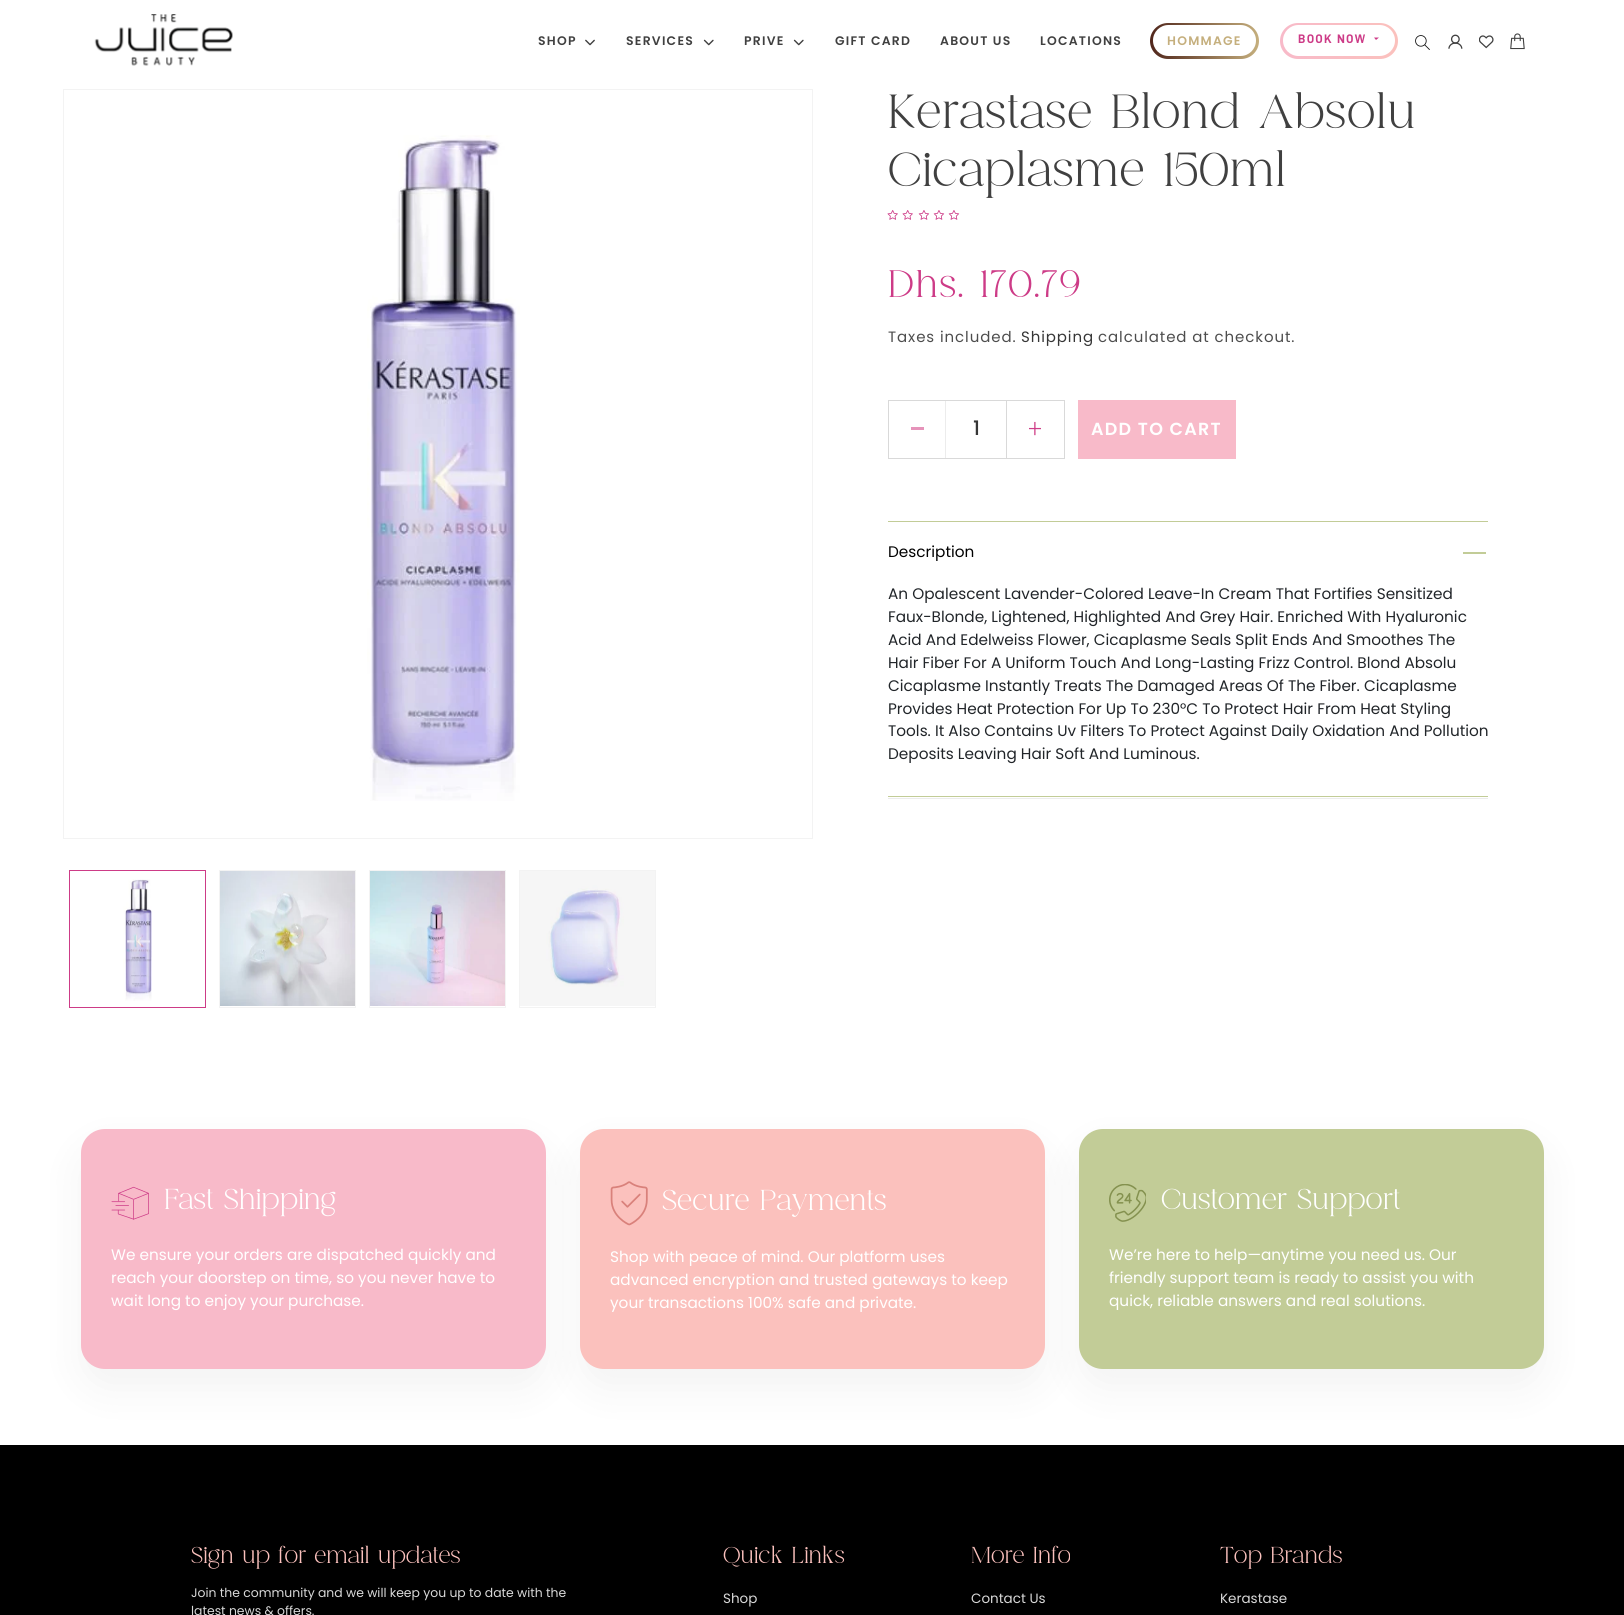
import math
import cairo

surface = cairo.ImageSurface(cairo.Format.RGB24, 1624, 1615)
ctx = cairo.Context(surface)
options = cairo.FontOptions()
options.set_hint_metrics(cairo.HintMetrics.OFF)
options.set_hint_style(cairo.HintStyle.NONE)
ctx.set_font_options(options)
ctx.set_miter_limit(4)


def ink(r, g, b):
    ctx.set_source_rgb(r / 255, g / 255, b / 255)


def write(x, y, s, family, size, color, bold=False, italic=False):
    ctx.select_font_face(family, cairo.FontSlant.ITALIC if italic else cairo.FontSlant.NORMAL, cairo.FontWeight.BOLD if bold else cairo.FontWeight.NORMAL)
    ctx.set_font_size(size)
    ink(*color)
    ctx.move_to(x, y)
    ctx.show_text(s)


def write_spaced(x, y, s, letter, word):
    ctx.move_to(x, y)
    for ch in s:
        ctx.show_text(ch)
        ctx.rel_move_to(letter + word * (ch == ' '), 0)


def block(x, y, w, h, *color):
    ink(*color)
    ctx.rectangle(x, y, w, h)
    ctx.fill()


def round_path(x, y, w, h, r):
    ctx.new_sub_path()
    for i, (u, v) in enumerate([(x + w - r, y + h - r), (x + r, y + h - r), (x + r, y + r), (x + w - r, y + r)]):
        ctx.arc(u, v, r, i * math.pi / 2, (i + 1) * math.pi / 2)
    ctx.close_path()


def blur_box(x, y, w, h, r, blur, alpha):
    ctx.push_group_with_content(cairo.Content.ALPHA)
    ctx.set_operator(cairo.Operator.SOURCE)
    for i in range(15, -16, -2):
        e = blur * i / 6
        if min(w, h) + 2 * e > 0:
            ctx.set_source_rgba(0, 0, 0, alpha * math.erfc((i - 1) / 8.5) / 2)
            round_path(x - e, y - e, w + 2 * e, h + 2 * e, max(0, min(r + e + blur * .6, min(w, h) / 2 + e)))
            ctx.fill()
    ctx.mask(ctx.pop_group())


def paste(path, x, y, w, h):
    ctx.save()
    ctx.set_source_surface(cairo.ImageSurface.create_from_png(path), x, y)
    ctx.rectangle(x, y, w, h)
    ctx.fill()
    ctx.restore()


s1 = dict(family="Poppins Medium", size=20, color=(54, 54, 54))
s2 = dict(family="Poppins", size=15.3, color=(0, 0, 0))
s3 = dict(family="Poppins", size=15.3, color=(33, 37, 41))
s4 = dict(family="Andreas", size=28.75, color=(255, 255, 255))
s5 = dict(family="Poppins", size=15.3, color=(255, 255, 255))
s6 = dict(family="Andreas", size=23, color=(251, 193, 189))
s7 = dict(family="Poppins", size=12.4, color=(217, 217, 217))
s8 = dict(family="Poppins", size=13.5, color=(217, 217, 217))

ink(255, 255, 255)
ctx.paint()
paste("pic1.png", 94, 14, 139, 52)
ctx.select_font_face("Poppins SemiBold")
ctx.set_font_size(12.4)
ink(64, 64, 64)
write_spaced(538, 45, "SHOP", 1.25, 0)
paste("pic2.png", 585, 39, 10, 7)
write_spaced(626, 45, "SERVICES", 1.25, 0)
paste("pic3.png", 703, 39, 11, 7)
write_spaced(744, 45, "PRIVE", 1.25, 0)
paste("pic3.png", 793, 39, 11, 7)
write_spaced(835, 45, "GIFT CARD", 1.25, 0)
write_spaced(940, 45, "ABOUT US", 1.25, 0)
write_spaced(1040, 45, "LOCATIONS", 1.25, 0)
gradient = cairo.LinearGradient(1259, 41, 1150, 41)
gradient.add_color_stop_rgba(0, 0.773, 0.686, 0.49, 1)
gradient.add_color_stop_rgba(1, 0.314, 0.149, 0.106, 1)
ctx.set_source(gradient)
round_path(1150, 23, 109, 36, 18)
ctx.fill()
ink(255, 255, 255)
round_path(1153, 25, 103, 31, 15.5)
ctx.fill()
ink(197, 175, 125)
write_spaced(1167, 45, "HOMMAGE", 1.25, 0)
gradient = cairo.LinearGradient(1398, 41, 1280, 41)
gradient.add_color_stop_rgba(0, 0.984, 0.757, 0.741, 1)
gradient.add_color_stop_rgba(1, 0.973, 0.729, 0.788, 1)
ctx.set_source(gradient)
round_path(1280, 23, 118, 36, 18)
ctx.fill()
ink(255, 255, 255)
round_path(1283, 25, 112, 31, 15.5)
ctx.fill()
ctx.select_font_face("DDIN", cairo.FontSlant.NORMAL, cairo.FontWeight.BOLD)
ink(205, 59, 135)
write_spaced(1298, 43, "BOOK NOW", 1.25, 0)
ctx.new_path()
ctx.move_to(1374, 37.5)
ctx.line_to(1379, 37.5)
ctx.line_to(1376, 40)
ctx.close_path()
ctx.fill()
paste("pic4.png", 1415, 35, 15, 15)
paste("pic5.png", 1448, 34, 15, 15)
paste("pic6.png", 1479, 35, 15, 14)
paste("pic7.png", 1510, 33, 15, 17)
ctx.rectangle(63.5, 89.5, 749, 749)
ink(243, 243, 243)
ctx.set_line_width(1)
ctx.stroke()
paste("pic8.png", 367, 135, 153, 666)
ctx.rectangle(69.5, 870.5, 136, 137)
ink(205, 59, 135)
ctx.stroke()
paste("pic9.png", 123, 879, 29, 122)
ctx.rectangle(219.5, 870.5, 136, 137)
ink(243, 243, 243)
ctx.stroke()
paste("pic10.png", 220, 871, 135, 135)
ctx.rectangle(369.5, 870.5, 136, 137)
ctx.stroke()
paste("pic11.png", 370, 871, 135, 135)
ctx.rectangle(519.5, 870.5, 136, 137)
ctx.stroke()
paste("pic12.png", 520, 871, 135, 135)
ctx.select_font_face("Andreas")
ctx.set_font_size(47.75)
ink(64, 64, 64)
write_spaced(888, 128, "Kerastase Blond Absolu", 0.75, 0)
write_spaced(888, 186, "Cicaplasme 150ml", 0.75, 0)
paste("pic13.png", 887, 210, 11, 10)
paste("pic13.png", 902, 210, 11, 10)
paste("pic14.png", 918, 210, 12, 10)
paste("pic14.png", 933, 210, 12, 10)
paste("pic14.png", 948, 210, 12, 10)
ctx.set_font_size(38.25)
ink(205, 59, 135)
write_spaced(888, 297, "Dhs. 170.79", 1.6, 0)
ctx.select_font_face("Poppins")
ctx.set_font_size(15)
ink(77, 77, 77)
write_spaced(888, 342, "Taxes included.", 0.9, 0)
ink(54, 54, 54)
write_spaced(1021, 342, "Shipping", 0.9, 0)
ink(77, 77, 77)
write_spaced(1098, 342, "calculated at checkout.", 0.9, 0)
ctx.rectangle(888.5, 400.5, 176, 58)
ink(217, 217, 217)
ctx.stroke()
block(945, 401, 1, 57, 236, 236, 236)
block(911, 427, 13, 3, 230, 147, 186)
write(973, 435, "1", **s1)
block(1006, 401, 1, 57, 217, 217, 217)
paste("pic15.png", 1029, 421, 12, 15)
block(1078, 400, 158, 59, 248, 186, 201)
ctx.select_font_face("Poppins SemiBold")
ctx.set_font_size(17.5)
ink(255, 255, 255)
write_spaced(1091, 435, "ADD TO CART", 1.25, 0)
block(888, 798, 600, 1, 236, 236, 236)
block(888, 521, 600, 1, 194, 204, 151)
block(888, 796, 600, 1, 194, 204, 151)
write(888, 557, "Description", **s2)
block(1463, 552, 23, 2, 194, 204, 151)
write(888, 599, "An Opalescent Lavender-Colored Leave-In Cream That Fortifies Sensitized", **s3)
write(888, 622, "Faux-Blonde, Lightened, Highlighted And Grey Hair. Enriched With Hyaluronic", **s3)
write(888, 645, "Acid And Edelweiss Flower, Cicaplasme Seals Split Ends And Smoothes The", **s3)
write(888, 668, "Hair Fiber For A Uniform Touch And Long-Lasting Frizz Control. Blond Absolu", **s3)
write(888, 691, "Cicaplasme Instantly Treats The Damaged Areas Of The Fiber. Cicaplasme", **s3)
write(888, 714, "Provides Heat Protection For Up To 230°C To Protect Hair From Heat Styling", **s3)
write(888, 736, "Tools. It Also Contains Uv Filters To Protect Against Daily Oxidation And Pollution", **s3)
write(888, 759, "Deposits Leaving Hair Soft And Luminous.", **s3)
block(0, 1445, 1624, 170, 0, 0, 0)
ink(0, 0, 0)
blur_box(81, 1148, 465, 240, 24, 21, 0.05)
ink(248, 186, 201)
round_path(81, 1129, 465, 240, 24)
ctx.fill()
paste("pic16.png", 111, 1186, 38, 34)
write(164, 1209, "Fast Shipping", **s4)
write(111, 1260, "We ensure your orders are dispatched quickly and", **s5)
write(111, 1283, "reach your doorstep on time, so you never have to", **s5)
write(111, 1306, "wait long to enjoy your purchase.", **s5)
ink(0, 0, 0)
blur_box(580, 1148, 465, 240, 24, 21, 0.05)
ink(251, 193, 189)
round_path(580, 1129, 465, 240, 24)
ctx.fill()
paste("pic17.png", 610, 1181, 38, 45)
write(662, 1210, "Secure Payments", **s4)
write(610, 1262, "Shop with peace of mind. Our platform uses", **s5)
write(610, 1285, "advanced encryption and trusted gateways to keep", **s5)
write(610, 1308, "your transactions 100% safe and private.", **s5)
ink(0, 0, 0)
blur_box(1079, 1148, 465, 240, 24, 21, 0.05)
ink(194, 204, 151)
round_path(1079, 1129, 465, 240, 24)
ctx.fill()
paste("pic18.png", 1109, 1184, 37, 38)
write(1161, 1209, "Customer Support", **s4)
write(1109, 1260, "We’re here to help—anytime you need us. Our", **s5)
write(1109, 1283, "friendly support team is ready to assist you with", **s5)
write(1109, 1306, "quick, reliable answers and real solutions.", **s5)
write(191, 1563, "Sign up for email updates", **s6)
write(191, 1597, "Join the community and we will keep you up to date with the", **s7)
write(191, 1615, "latest news & offers.", **s7)
write(723, 1563, "Quick Links", **s6)
write(723, 1603, "Shop", **s8)
write(971, 1563, "More Info", **s6)
write(971, 1603, "Contact Us", **s8)
write(1220, 1563, "Top Brands", **s6)
write(1220, 1603, "Kerastase", **s8)
surface.write_to_png("screenshot.png")
